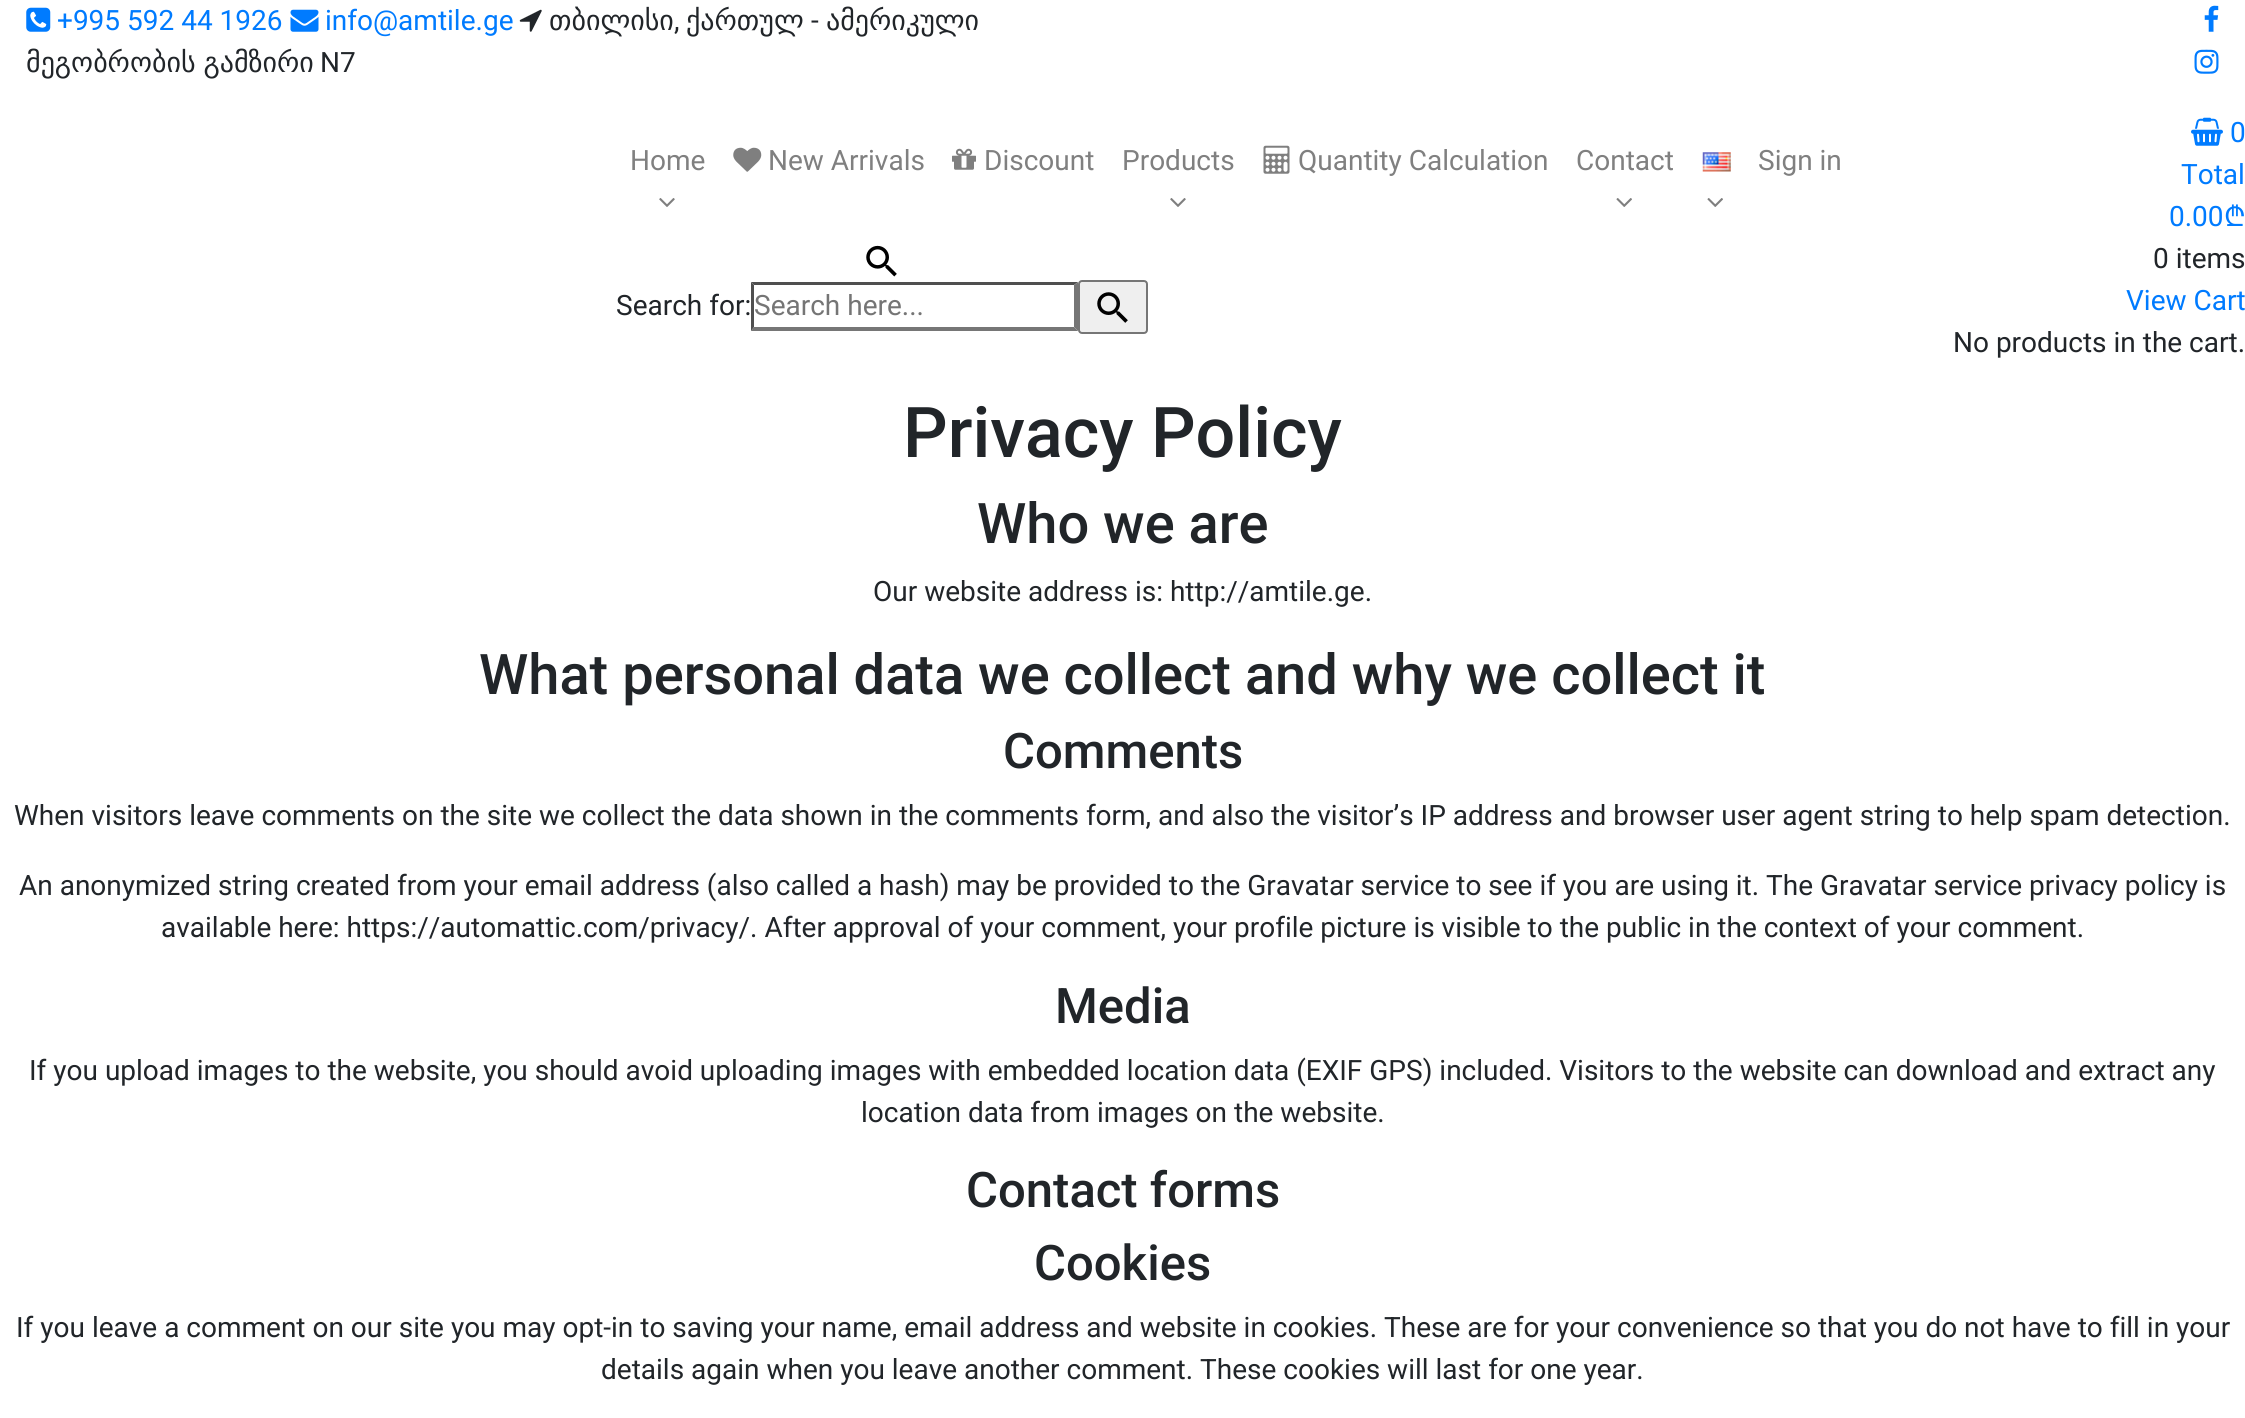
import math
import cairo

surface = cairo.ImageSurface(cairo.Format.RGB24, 2245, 1418)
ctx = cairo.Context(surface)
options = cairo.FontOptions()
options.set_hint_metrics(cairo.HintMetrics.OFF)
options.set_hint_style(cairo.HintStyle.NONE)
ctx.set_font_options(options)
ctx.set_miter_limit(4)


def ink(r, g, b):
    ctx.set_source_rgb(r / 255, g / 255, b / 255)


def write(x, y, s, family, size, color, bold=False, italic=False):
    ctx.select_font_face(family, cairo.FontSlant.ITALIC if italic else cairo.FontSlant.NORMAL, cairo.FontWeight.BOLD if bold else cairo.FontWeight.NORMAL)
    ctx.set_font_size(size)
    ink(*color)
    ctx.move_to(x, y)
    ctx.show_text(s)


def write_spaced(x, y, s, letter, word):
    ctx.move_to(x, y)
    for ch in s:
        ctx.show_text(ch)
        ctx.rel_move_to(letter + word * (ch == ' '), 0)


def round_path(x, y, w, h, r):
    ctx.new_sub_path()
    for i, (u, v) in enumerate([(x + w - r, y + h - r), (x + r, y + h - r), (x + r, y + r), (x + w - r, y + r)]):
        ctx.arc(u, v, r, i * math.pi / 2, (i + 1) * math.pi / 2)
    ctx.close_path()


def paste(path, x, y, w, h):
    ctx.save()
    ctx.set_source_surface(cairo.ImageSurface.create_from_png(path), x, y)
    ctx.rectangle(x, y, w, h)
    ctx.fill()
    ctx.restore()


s1 = dict(family="DejaVu Sans", size=28, color=(33, 37, 41))
s2 = dict(family="Roboto", size=28, color=(33, 37, 41))
s3 = dict(family="Roboto", size=28, color=(0, 123, 255))
s4 = dict(family="Roboto", size=28, color=(128, 128, 128))
s5 = dict(family="Roboto", size=28, color=(117, 117, 117))
s6 = dict(family="Noto Sans", size=28, color=(0, 123, 255))
s7 = dict(family="Roboto Medium", size=70, color=(33, 37, 41))
s8 = dict(family="Roboto Medium", size=56, color=(33, 37, 41))
s9 = dict(family="Roboto Medium", size=49, color=(33, 37, 41))

ink(255, 255, 255)
ctx.paint()
paste("pic1.png", 519, 9, 23, 23)
write(549, 30, "თბილისი", **s1)
write(686, 30, "ქართულ", **s1)
write(811, 30, "-", **s2)
write(826, 30, "ამერიკული", **s1)
write(674, 30, ",", **s2)
ctx.select_font_face("DejaVu Sans")
write_spaced(26, 72, "მეგობრობის გამზირი", 0, -1)
write(320, 72, "N7", **s2)
paste("pic2.png", 26, 7, 25, 25)
write(57, 30, "+995 592 44 1926", **s3)
paste("pic3.png", 290, 9, 29, 23)
write(325, 30, "info@amtile.ge", **s3)
paste("pic4.png", 2204, 5, 15, 27)
paste("pic5.png", 2194, 49, 25, 25)
write(630, 170, "Home", **s4)
paste("pic6.png", 659, 198, 16, 9)
paste("pic7.png", 733, 147, 29, 25)
write(768, 170, "New Arrivals", **s4)
paste("pic8.png", 952, 148, 24, 22)
write(984, 170, "Discount", **s4)
write(1122, 170, "Products", **s4)
paste("pic6.png", 1170, 198, 16, 9)
paste("pic9.png", 1263, 145, 27, 29)
write(1298, 170, "Quantity Calculation", **s4)
write(1576, 170, "Contact", **s4)
paste("pic10.png", 1616, 198, 16, 9)
paste("pic11.png", 1702, 152, 29, 20)
paste("pic10.png", 1707, 198, 16, 9)
write(1758, 170, "Sign in", **s4)
paste("pic12.png", 866, 245, 31, 32)
write(616, 315, "Search for:", **s2)
ink(79, 79, 79)
ctx.new_path()
ctx.move_to(751, 282)
ctx.line_to(1078, 282)
ctx.line_to(1074, 285)
ctx.line_to(754, 285)
ctx.close_path()
ctx.fill()
ink(118, 118, 118)
ctx.new_path()
ctx.move_to(1078, 282)
ctx.line_to(1078, 331)
ctx.line_to(1074, 327)
ctx.line_to(1074, 285)
ctx.close_path()
ctx.fill()
ctx.new_path()
ctx.move_to(1078, 331)
ctx.line_to(751, 331)
ctx.line_to(754, 327)
ctx.line_to(1074, 327)
ctx.close_path()
ctx.fill()
ink(79, 79, 79)
ctx.new_path()
ctx.move_to(751, 331)
ctx.line_to(751, 282)
ctx.line_to(754, 285)
ctx.line_to(754, 327)
ctx.close_path()
ctx.fill()
write(754, 315, "Search here...", **s5)
ink(239, 239, 239)
round_path(1079, 281, 68, 52, 3)
ctx.fill_preserve()
ink(118, 118, 118)
ctx.stroke()
paste("pic13.png", 1097, 292, 31, 31)
paste("pic14.png", 2191, 117, 32, 29)
write(2230, 142, "0", **s3)
write(2181, 184, "Total", **s3)
write(2169, 226, "0.00", **s3)
write(2224, 226, "₾", **s6)
write(2153, 268, "0 items", **s2)
write(2126, 310, "View Cart", **s3)
write(1953, 352, "No products in the cart.", **s2)
write(903, 457, "Privacy Policy", **s7)
write(977, 543, "Who we are", **s8)
write(873, 601, "Our website address is: http://amtile.ge.", **s2)
write(479, 694, "What personal data we collect and why we collect it", **s8)
write(1003, 768, "Comments", **s9)
write(14, 825, "When visitors leave comments on the site we collect the data shown in the comments form, and also the visitor’s IP address and browser user agent string to help spam detection.", **s2)
write(19, 895, "An anonymized string created from your email address (also called a hash) may be provided to the Gravatar service to see if you are using it. The Gravatar service privacy policy is", **s2)
write(161, 937, "available here: https://automattic.com/privacy/. After approval of your comment, your profile picture is visible to the public in the context of your comment.", **s2)
write(1055, 1023, "Media", **s9)
write(29, 1080, "If you upload images to the website, you should avoid uploading images with embedded location data (EXIF GPS) included. Visitors to the website can download and extract any", **s2)
write(861, 1122, "location data from images on the website.", **s2)
write(966, 1207, "Contact forms", **s9)
write(1034, 1280, "Cookies", **s9)
write(16, 1337, "If you leave a comment on our site you may opt-in to saving your name, email address and website in cookies. These are for your convenience so that you do not have to fill in your", **s2)
write(601, 1379, "details again when you leave another comment. These cookies will last for one year.", **s2)
surface.write_to_png("screenshot.png")
